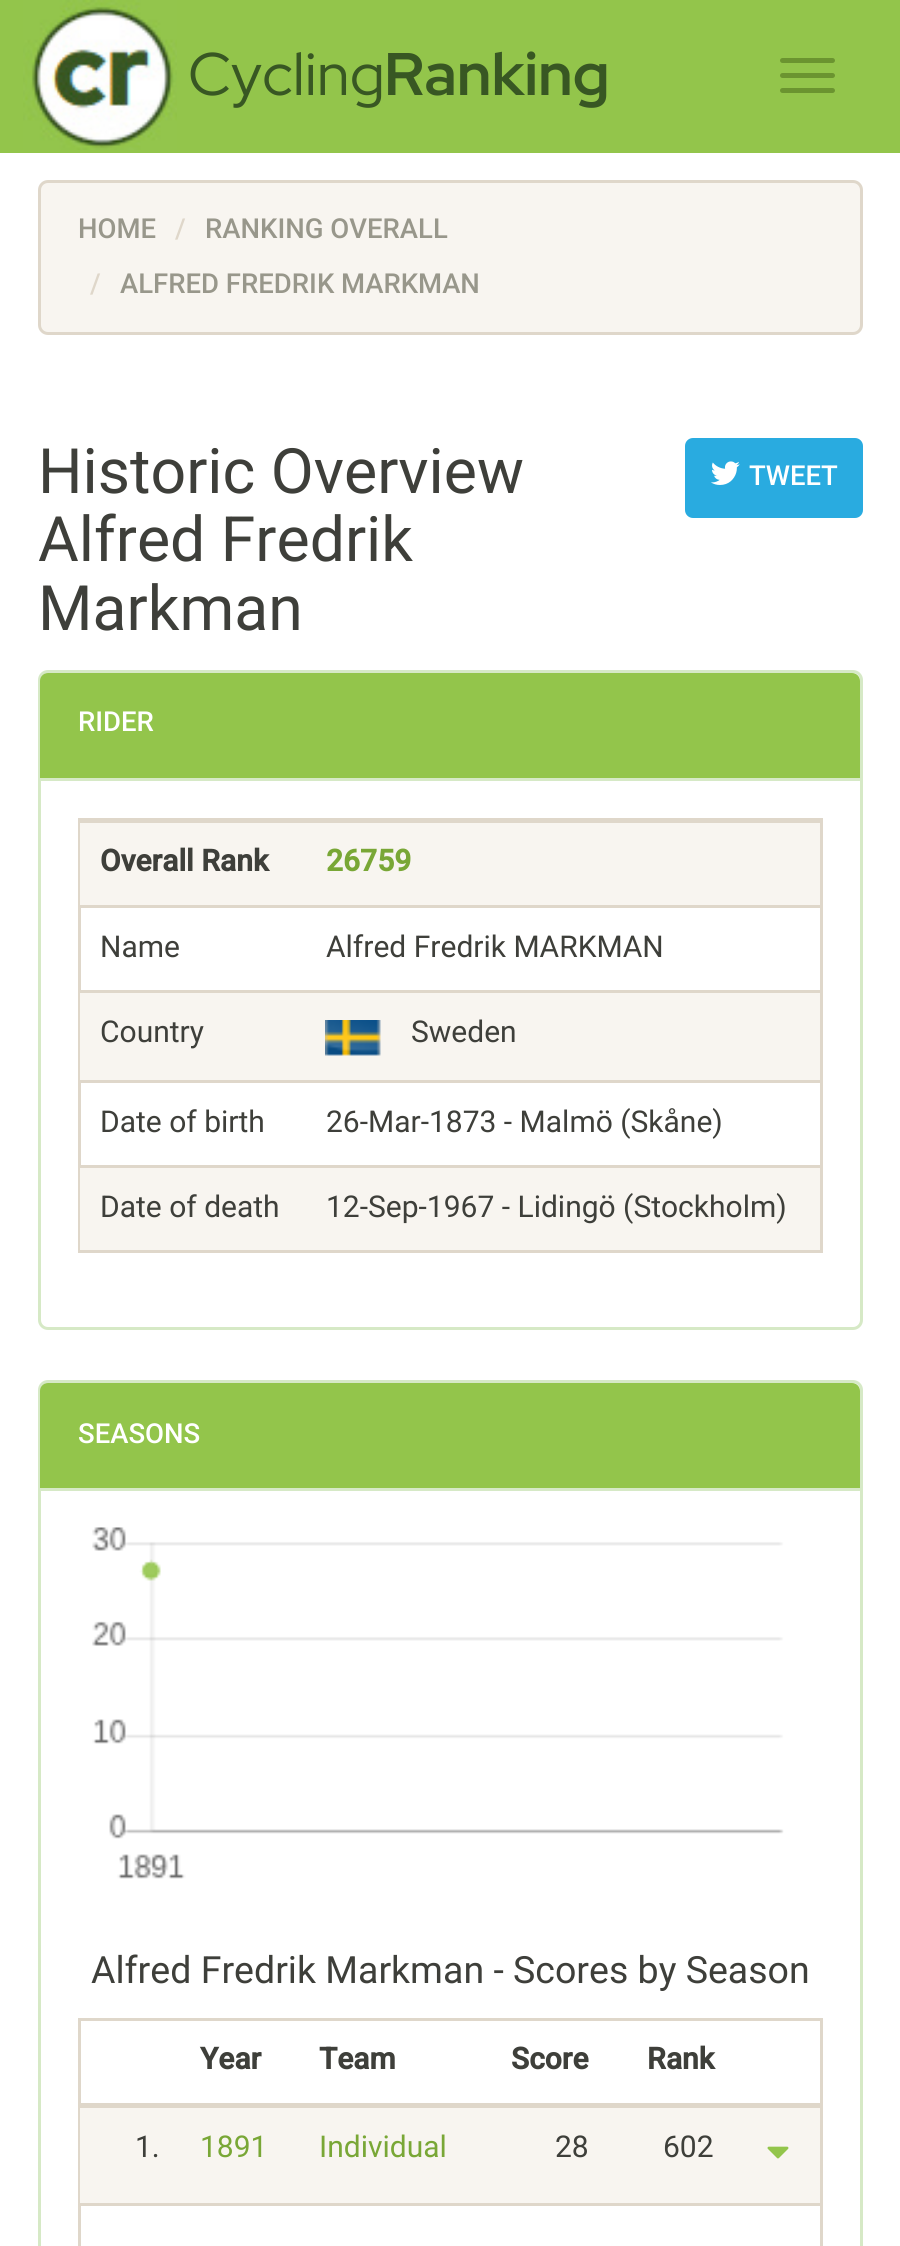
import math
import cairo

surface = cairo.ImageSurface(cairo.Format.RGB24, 900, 2246)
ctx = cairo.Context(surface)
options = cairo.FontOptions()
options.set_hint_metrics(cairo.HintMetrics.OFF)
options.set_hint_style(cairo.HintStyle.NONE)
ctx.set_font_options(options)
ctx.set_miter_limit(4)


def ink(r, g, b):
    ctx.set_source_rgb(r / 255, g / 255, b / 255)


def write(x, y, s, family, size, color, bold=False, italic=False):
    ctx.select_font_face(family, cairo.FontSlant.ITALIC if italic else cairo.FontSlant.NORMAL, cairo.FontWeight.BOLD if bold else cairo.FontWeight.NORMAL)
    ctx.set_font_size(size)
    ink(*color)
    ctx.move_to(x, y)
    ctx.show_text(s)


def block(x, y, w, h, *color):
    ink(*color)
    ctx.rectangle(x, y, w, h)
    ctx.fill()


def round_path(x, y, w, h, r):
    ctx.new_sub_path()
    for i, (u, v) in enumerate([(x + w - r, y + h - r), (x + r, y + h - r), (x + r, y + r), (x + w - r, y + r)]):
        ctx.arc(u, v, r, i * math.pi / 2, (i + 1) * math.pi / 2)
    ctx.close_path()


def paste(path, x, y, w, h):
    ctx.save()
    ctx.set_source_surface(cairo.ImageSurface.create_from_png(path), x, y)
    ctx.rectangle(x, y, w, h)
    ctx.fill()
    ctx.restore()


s1 = dict(family="Red Hat Display", size=60, color=(56, 87, 35))
s2 = dict(family="Red Hat Display", size=60, color=(56, 87, 35), bold=True)
s3 = dict(family="Roboto Medium", size=27.5, color=(152, 151, 139))
s4 = dict(family="Roboto Medium", size=27.5, color=(223, 215, 202))
s5 = dict(family="Roboto", size=62.5, color=(62, 63, 58))
s6 = dict(family="Roboto Medium", size=27.5, color=(255, 255, 255))
s7 = dict(family="Roboto", size=30, color=(62, 63, 58), bold=True)
s8 = dict(family="Roboto", size=30, color=(121, 167, 54), bold=True)
s9 = dict(family="Roboto", size=30, color=(62, 63, 58))
s10 = dict(family="Roboto", size=37.5, color=(62, 63, 58))
s11 = dict(family="Roboto", size=30, color=(121, 167, 54))

ink(255, 255, 255)
ctx.paint()
block(0, 0, 900, 153, 147, 197, 75)
paste("pic1.png", 23, 0, 154, 150)
write(188, 95, "Cycling", **s1)
write(384, 95, "Ranking", **s2)
ink(107, 148, 48)
round_path(780, 58, 55, 5, 2.5)
ctx.fill()
round_path(780, 73, 55, 5, 2.5)
ctx.fill()
round_path(780, 88, 55, 5, 2.5)
ctx.fill()
ink(248, 245, 240)
round_path(39.5, 181.5, 822, 152, 8.5)
ctx.fill_preserve()
ink(223, 215, 202)
ctx.set_line_width(3)
ctx.stroke()
write(78, 238, "HOME", **s3)
write(175, 238, "/", **s4)
write(205, 238, "RANKING OVERALL", **s3)
write(90, 293, "/", **s4)
write(120, 293, "ALFRED FREDRIK MARKMAN", **s3)
write(38, 493, "Historic Overview", **s5)
write(38, 561, "Alfred Fredrik", **s5)
write(38, 630, "Markman", **s5)
ink(41, 171, 224)
round_path(685, 438, 178, 80, 8)
ctx.fill()
paste("pic2.png", 711, 461, 29, 24)
write(749, 485, "TWEET", **s6)
round_path(39.5, 671.5, 822, 657, 8.5)
ink(214, 233, 198)
ctx.stroke()
ink(147, 197, 75)
ctx.new_path()
ctx.move_to(48, 673)
ctx.line_to(852, 673)
ctx.curve_to(856.5, 673, 860, 676.5, 860, 681)
ctx.line_to(860, 780)
ctx.line_to(40, 780)
ctx.line_to(40, 681)
ctx.curve_to(40, 676.5, 43.5, 673, 48, 673)
ctx.close_path()
ctx.fill()
block(40, 778, 820, 3, 214, 233, 198)
write(78, 731, "RIDER", **s6)
ctx.rectangle(79.5, 819.5, 742, 432)
ink(223, 215, 202)
ctx.stroke()
block(80, 823, 740, 82, 248, 245, 240)
write(100, 871, "Overall Rank", **s7)
block(80, 821, 740, 2, 223, 215, 202)
write(326, 871, "26759", **s8)
write(100, 957, "Name", **s9)
block(80, 905, 740, 3, 223, 215, 202)
write(326, 957, "Alfred Fredrik MARKMAN", **s9)
block(80, 993, 740, 87, 248, 245, 240)
write(100, 1042, "Country", **s9)
block(80, 990, 740, 3, 223, 215, 202)
paste("pic3.png", 325, 1020, 56, 36)
write(411, 1042, "Sweden", **s9)
write(100, 1132, "Date of birth", **s9)
block(80, 1080, 740, 3, 223, 215, 202)
write(326, 1132, "26-Mar-1873 - Malmö (Skåne)", **s9)
block(80, 1168, 740, 82, 248, 245, 240)
write(100, 1217, "Date of death", **s9)
block(80, 1165, 740, 3, 223, 215, 202)
write(326, 1217, "12-Sep-1967 - Lidingö (Stockholm)", **s9)
round_path(39.5, 1381.5, 822, 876, 8.5)
ink(214, 233, 198)
ctx.stroke()
ink(147, 197, 75)
ctx.new_path()
ctx.move_to(48, 1383)
ctx.line_to(852, 1383)
ctx.curve_to(856.5, 1383, 860, 1386.5, 860, 1391)
ctx.line_to(860, 1490)
ctx.line_to(40, 1490)
ctx.line_to(40, 1391)
ctx.curve_to(40, 1386.5, 43.5, 1383, 48, 1383)
ctx.close_path()
ctx.fill()
block(40, 1488, 820, 3, 214, 233, 198)
write(78, 1443, "SEASONS", **s6)
paste("pic4.png", 92, 1527, 692, 352)
write(91, 1983, "Alfred Fredrik Markman - Scores by Season", **s10)
ctx.rectangle(79.5, 2019.5, 742, 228)
ink(223, 215, 202)
ctx.stroke()
write(200, 2069, "Year", **s7)
write(319, 2069, "Team", **s7)
write(511, 2069, "Score", **s7)
write(647, 2069, "Rank", **s7)
block(80, 2103, 740, 5, 223, 215, 202)
block(80, 2108, 740, 95, 248, 245, 240)
write(135, 2157, "1.", **s9)
write(200, 2157, "1891", **s11)
write(319, 2157, "Individual", **s11)
write(555, 2157, "28", **s9)
write(663, 2157, "602", **s9)
paste("pic5.png", 767, 2146, 22, 13)
block(80, 2203, 740, 3, 223, 215, 202)
surface.write_to_png("screenshot.png")
